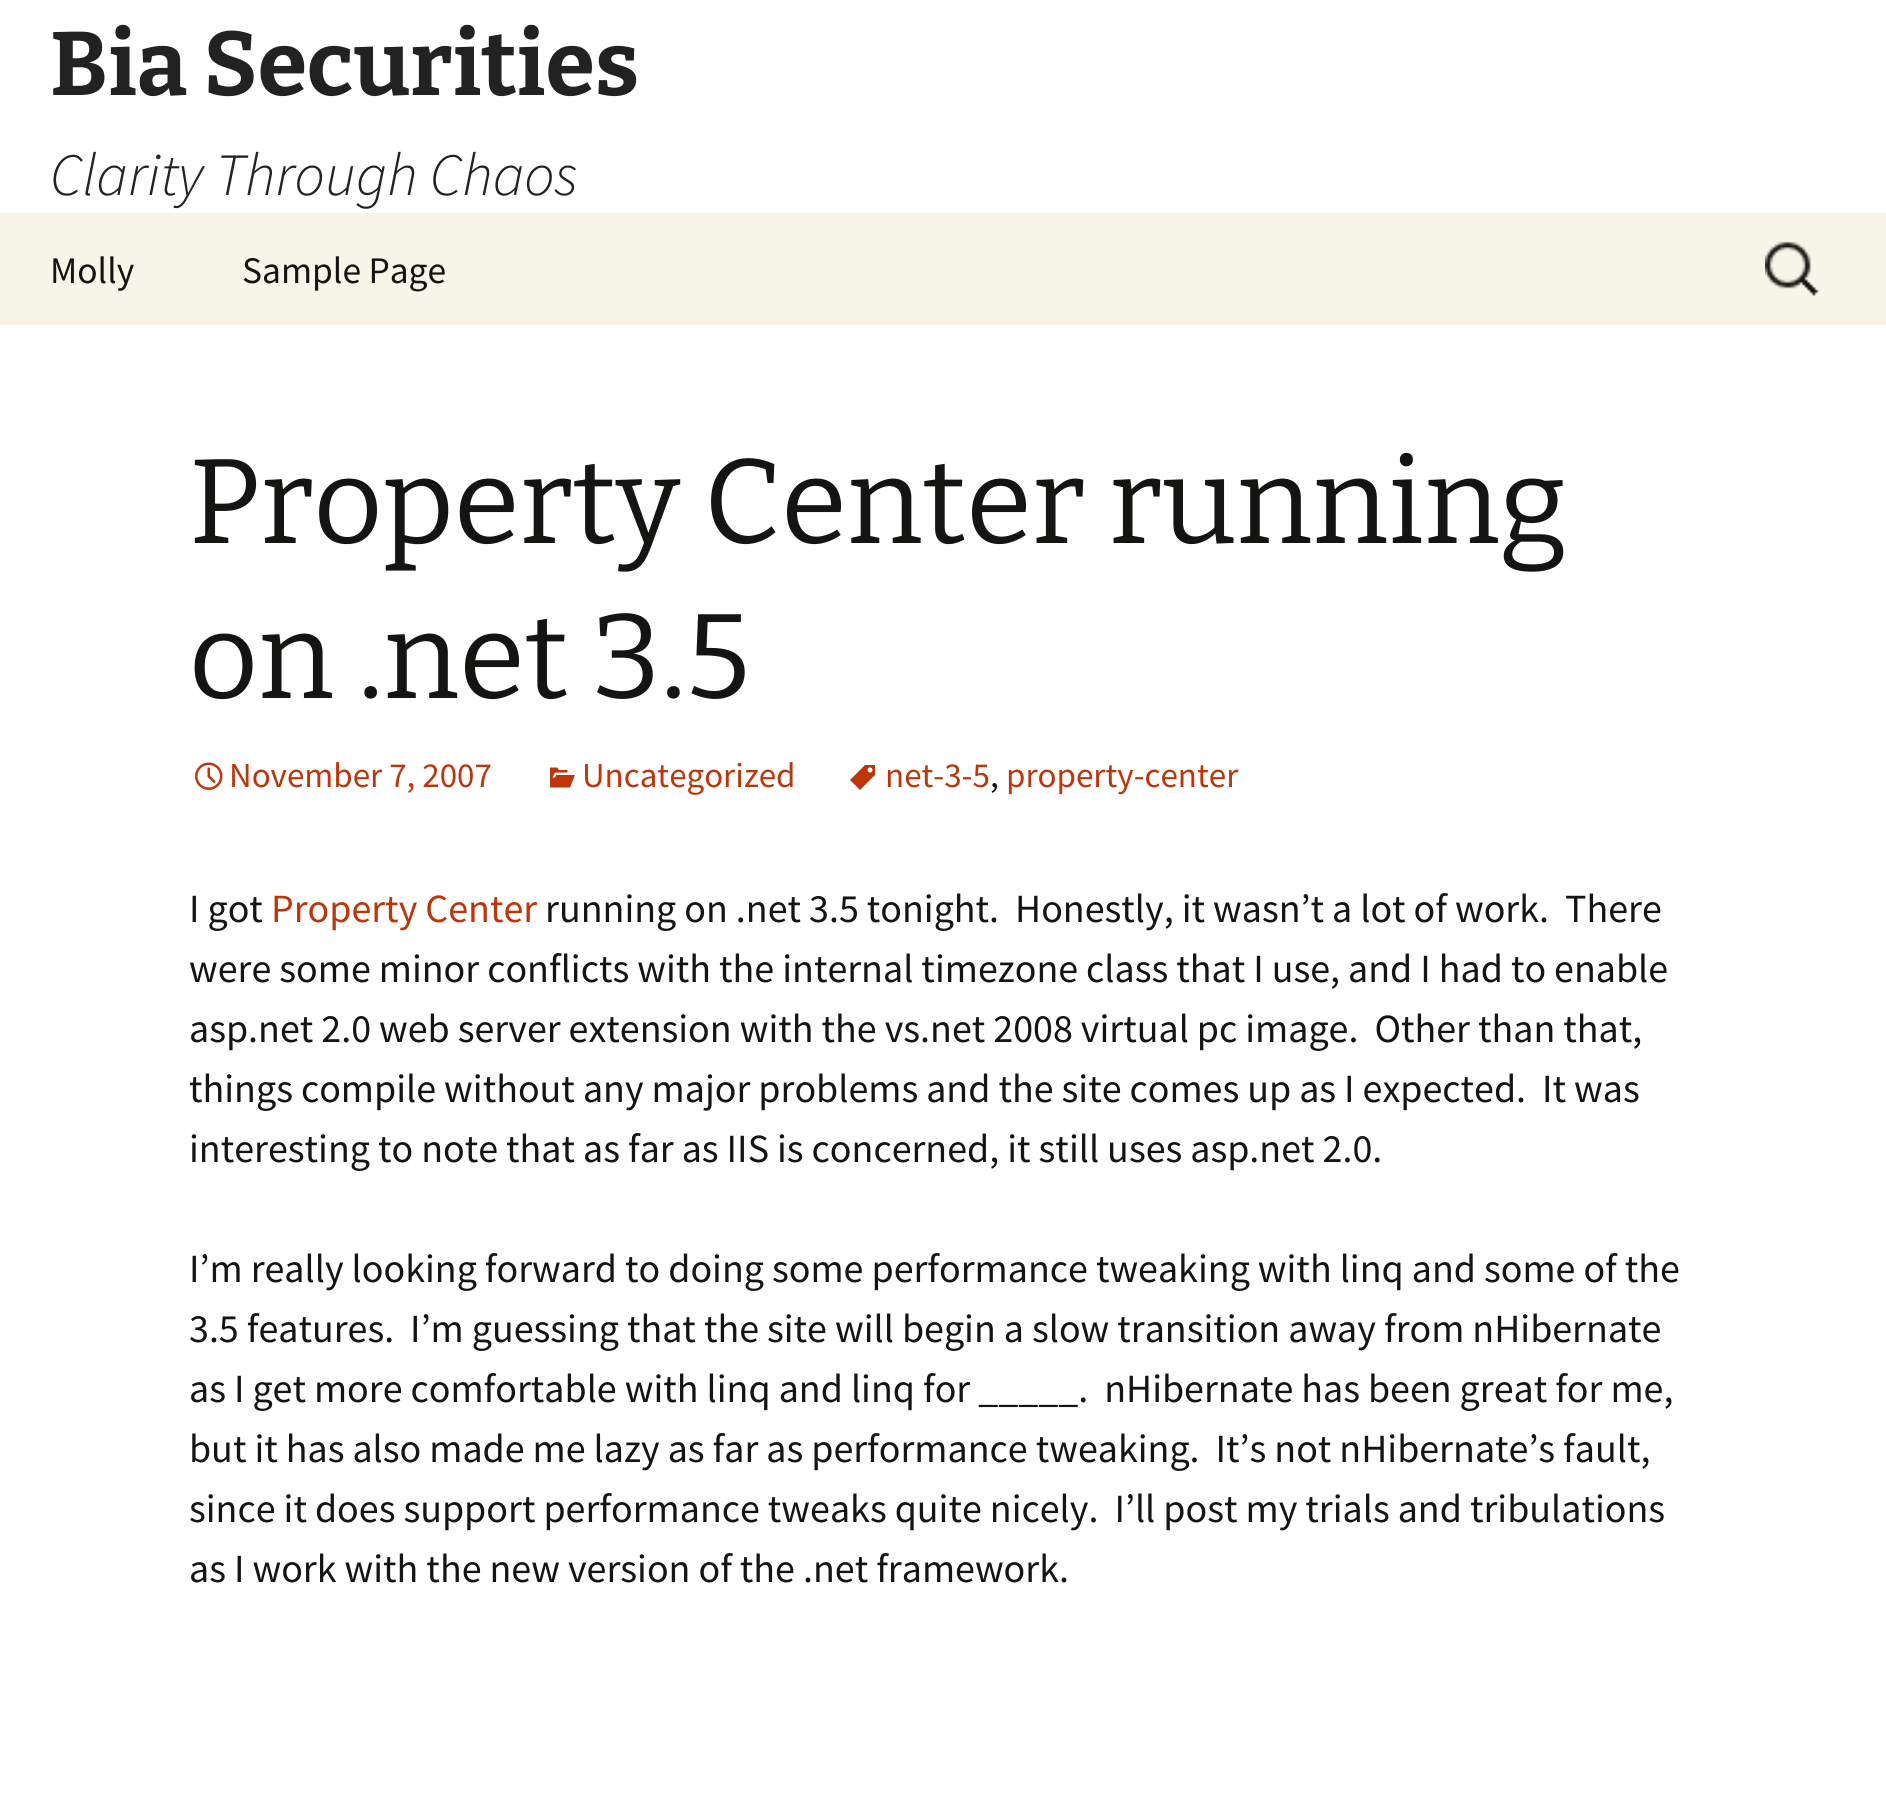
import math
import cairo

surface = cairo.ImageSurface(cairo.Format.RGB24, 1886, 1806)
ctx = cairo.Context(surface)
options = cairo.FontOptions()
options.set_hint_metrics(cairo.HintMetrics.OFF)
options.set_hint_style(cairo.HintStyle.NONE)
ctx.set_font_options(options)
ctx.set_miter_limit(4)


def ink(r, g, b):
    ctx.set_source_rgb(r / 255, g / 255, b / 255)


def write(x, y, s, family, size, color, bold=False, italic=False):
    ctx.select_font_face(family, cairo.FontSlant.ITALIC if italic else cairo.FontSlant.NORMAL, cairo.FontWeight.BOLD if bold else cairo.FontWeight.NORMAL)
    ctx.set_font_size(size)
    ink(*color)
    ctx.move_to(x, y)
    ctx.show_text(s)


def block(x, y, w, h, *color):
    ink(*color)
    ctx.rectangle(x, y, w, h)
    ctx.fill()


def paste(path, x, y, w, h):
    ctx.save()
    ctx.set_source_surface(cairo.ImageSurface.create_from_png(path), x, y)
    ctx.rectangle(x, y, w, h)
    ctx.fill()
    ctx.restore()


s1 = dict(family="Bitter", size=90, color=(34, 34, 34), bold=True)
s2 = dict(family="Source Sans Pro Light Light", size=60, color=(34, 34, 34), italic=True)
s3 = dict(family="Source Sans Pro", size=37.5, color=(20, 20, 18))
s4 = dict(family="Bitter", size=120, color=(20, 20, 18))
s5 = dict(family="Source Sans Pro", size=35, color=(188, 54, 10))
s6 = dict(family="Source Sans Pro", size=35, color=(20, 20, 18))
s7 = dict(family="Source Sans Pro", size=40, color=(20, 20, 18))
s8 = dict(family="Source Sans Pro", size=40, color=(188, 54, 10))

ink(255, 255, 255)
ctx.paint()
write(50, 95, "Bia Securities", **s1)
write(50, 195, "Clarity Through Chaos", **s2)
block(0, 213, 1886, 112, 247, 245, 231)
write(50, 283, "Molly", **s3)
write(242, 283, "Sample Page", **s3)
paste("pic1.png", 1765, 241, 54, 55)
write(189, 543, "Property Center running", **s4)
write(189, 698, "on .net 3.5", **s4)
paste("pic2.png", 195, 762, 28, 28)
write(229, 787, "November 7, 2007", **s5)
paste("pic3.png", 550, 767, 25, 21)
write(582, 787, "Uncategorized", **s5)
paste("pic4.png", 850, 765, 25, 25)
write(885, 787, "net-3-5", **s5)
write(990, 787, ",", **s6)
write(1006, 787, "property-center", **s5)
write(189, 922, "I got", **s7)
write(271, 922, "Property Center", **s8)
write(545, 922, "running on .net 3.5 tonight.  Honestly, it wasn’t a lot of work.  There", **s7)
write(189, 982, "were some minor conflicts with the internal timezone class that I use, and I had to enable", **s7)
write(189, 1042, "asp.net 2.0 web server extension with the vs.net 2008 virtual pc image.  Other than that,", **s7)
write(189, 1102, "things compile without any major problems and the site comes up as I expected.  It was", **s7)
write(189, 1162, "interesting to note that as far as IIS is concerned, it still uses asp.net 2.0.", **s7)
write(189, 1282, "I’m really looking forward to doing some performance tweaking with linq and some of the", **s7)
write(189, 1342, "3.5 features.  I’m guessing that the site will begin a slow transition away from nHibernate", **s7)
write(189, 1402, "as I get more comfortable with linq and linq for _____.  nHibernate has been great for me,", **s7)
write(189, 1462, "but it has also made me lazy as far as performance tweaking.  It’s not nHibernate’s fault,", **s7)
write(189, 1522, "since it does support performance tweaks quite nicely.  I’ll post my trials and tribulations", **s7)
write(189, 1582, "as I work with the new version of the .net framework.", **s7)
surface.write_to_png("screenshot.png")
